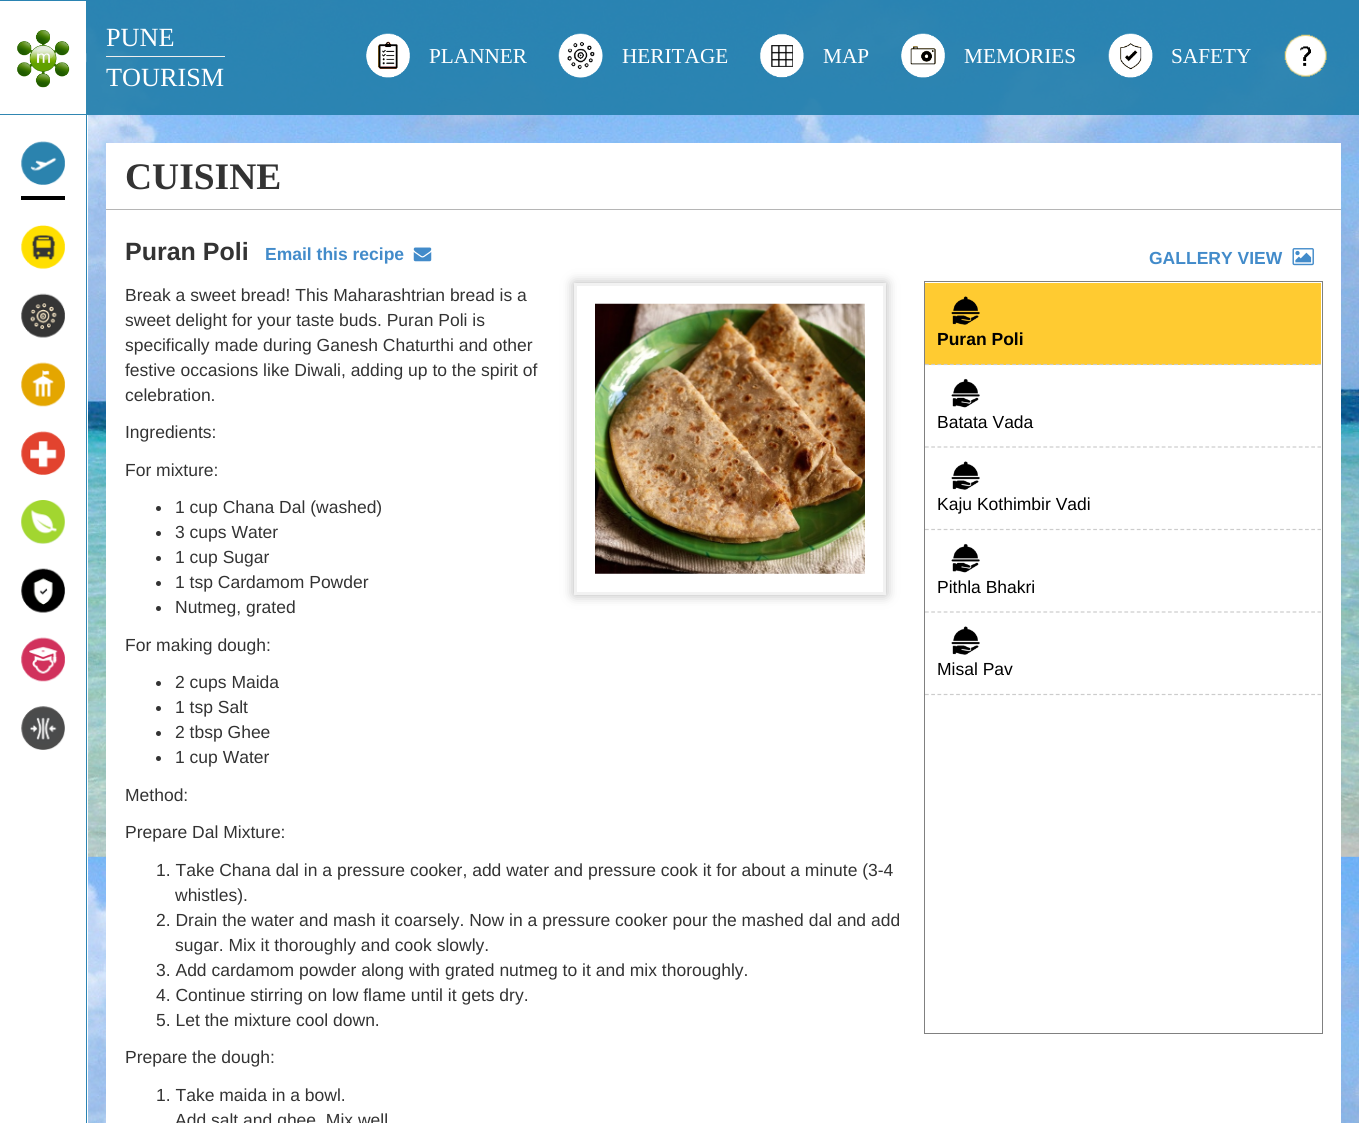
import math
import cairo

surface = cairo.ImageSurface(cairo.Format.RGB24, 1359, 1123)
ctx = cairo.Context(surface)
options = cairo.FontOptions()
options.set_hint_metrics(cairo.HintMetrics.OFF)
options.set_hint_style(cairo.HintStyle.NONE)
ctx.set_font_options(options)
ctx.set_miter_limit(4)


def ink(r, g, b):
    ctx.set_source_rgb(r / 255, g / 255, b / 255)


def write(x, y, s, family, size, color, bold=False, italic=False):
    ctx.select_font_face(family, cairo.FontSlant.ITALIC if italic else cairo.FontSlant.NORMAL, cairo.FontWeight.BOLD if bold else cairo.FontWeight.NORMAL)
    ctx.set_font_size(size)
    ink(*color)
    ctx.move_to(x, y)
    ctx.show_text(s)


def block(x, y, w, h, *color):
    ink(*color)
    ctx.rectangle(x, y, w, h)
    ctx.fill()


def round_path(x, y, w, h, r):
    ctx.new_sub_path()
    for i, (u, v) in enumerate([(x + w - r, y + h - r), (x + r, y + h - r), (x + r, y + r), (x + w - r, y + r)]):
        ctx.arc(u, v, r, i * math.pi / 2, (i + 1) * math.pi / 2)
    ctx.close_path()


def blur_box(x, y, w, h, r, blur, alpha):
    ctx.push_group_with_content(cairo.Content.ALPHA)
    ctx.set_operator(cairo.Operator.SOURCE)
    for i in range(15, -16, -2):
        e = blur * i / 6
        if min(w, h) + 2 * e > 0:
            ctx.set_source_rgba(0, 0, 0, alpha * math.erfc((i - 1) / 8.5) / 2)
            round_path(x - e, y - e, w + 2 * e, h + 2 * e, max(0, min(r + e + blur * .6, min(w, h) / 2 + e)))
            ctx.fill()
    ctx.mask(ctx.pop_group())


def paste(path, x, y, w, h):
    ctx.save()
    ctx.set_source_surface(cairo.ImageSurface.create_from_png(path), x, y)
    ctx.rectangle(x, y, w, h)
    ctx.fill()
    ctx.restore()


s1 = dict(family="Liberation Serif", size=26.25, color=(255, 255, 255))
s2 = dict(family="Liberation Serif", size=21.25, color=(255, 255, 255))
s3 = dict(family="Liberation Serif", size=37.5, color=(51, 51, 51), bold=True)
s4 = dict(family="Liberation Sans", size=25, color=(51, 51, 51), bold=True)
s5 = dict(family="Liberation Sans", size=17.5, color=(66, 139, 202), bold=True)
s6 = dict(family="Liberation Sans", size=17.5, color=(51, 51, 51))
s7 = dict(family="Liberation Sans", size=17.5, color=(0, 0, 0), bold=True)
s8 = dict(family="Liberation Sans", size=17.5, color=(0, 0, 0))

ink(255, 255, 255)
ctx.paint()
paste("pic1.png", 0, 0, 1359, 1123)
ctx.set_source_rgba(0.137, 0.494, 0.671, 0.91)
ctx.rectangle(0, 0, 1359, 115)
ctx.fill()
block(0, 1, 86, 113, 255, 255, 255)
paste("pic2.png", 17, 30, 53, 58)
block(0, 115, 88, 1008, 255, 255, 255)
block(86, 115, 1, 1008, 42, 131, 178)
block(21, 196, 44, 4, 0, 0, 0)
paste("pic3.png", 21, 141, 44, 44)
paste("pic4.png", 21, 225, 44, 44)
paste("pic5.png", 21, 293, 44, 45)
paste("pic6.png", 21, 362, 44, 45)
paste("pic7.png", 21, 431, 44, 44)
paste("pic8.png", 21, 500, 44, 44)
paste("pic9.png", 21, 568, 44, 45)
paste("pic10.png", 21, 637, 44, 45)
paste("pic11.png", 21, 706, 44, 44)
paste("pic12.png", 86, 53, 1, 10)
write(106, 46, "PUNE", **s1)
block(106, 56, 119, 1, 238, 238, 238)
write(106, 86, "TOURISM", **s1)
paste("pic13.png", 366, 33, 44, 45)
write(429, 63, "PLANNER", **s2)
paste("pic14.png", 558, 33, 45, 45)
write(622, 63, "HERITAGE", **s2)
paste("pic15.png", 760, 33, 44, 45)
write(823, 63, "MAP", **s2)
paste("pic16.png", 901, 33, 44, 45)
write(964, 63, "MEMORIES", **s2)
paste("pic17.png", 1108, 33, 45, 45)
write(1171, 63, "SAFETY", **s2)
paste("pic18.png", 1284, 34, 43, 43)
block(106, 143, 1235, 980, 255, 255, 255)
block(106, 209, 1235, 1, 181, 181, 181)
write(125, 189, "CUISINE", **s3)
write(125, 260, "Puran Poli", **s4)
write(265, 260, "Email this recipe", **s5)
paste("pic19.png", 413, 247, 19, 15)
ctx.save()
ctx.set_fill_rule(cairo.FillRule.EVEN_ODD)
ctx.new_path()
ctx.move_to(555, 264)
ctx.line_to(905, 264)
ctx.line_to(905, 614)
ctx.line_to(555, 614)
ctx.close_path()
ctx.move_to(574, 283)
ctx.line_to(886, 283)
ctx.line_to(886, 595)
ctx.line_to(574, 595)
ctx.close_path()
ctx.clip()
ink(181, 181, 181)
blur_box(574, 283, 312, 312, 0, 6, 1)
ctx.restore()
ctx.rectangle(575.5, 284.5, 309, 309)
ink(242, 242, 242)
ctx.set_line_width(3)
ctx.stroke()
paste("pic20.png", 595, 303, 270, 271)
write(125, 301, "Break a sweet bread! This Maharashtrian bread is a", **s6)
write(125, 326, "sweet delight for your taste buds. Puran Poli is", **s6)
write(125, 351, "specifically made during Ganesh Chaturthi and other", **s6)
write(125, 376, "festive occasions like Diwali, adding up to the spirit of", **s6)
write(125, 401, "celebration.", **s6)
write(125, 438, "Ingredients:", **s6)
write(125, 476, "For mixture:", **s6)
ctx.new_path()
ctx.arc(158.5, 508.5, 2.5, 0, 2 * math.pi)
ctx.fill()
write(175, 513, "1 cup Chana Dal (washed)", **s6)
ctx.new_path()
ctx.arc(158.5, 533.5, 2.5, 0, 2 * math.pi)
ctx.fill()
write(175, 538, "3 cups Water", **s6)
ctx.new_path()
ctx.arc(158.5, 558.5, 2.5, 0, 2 * math.pi)
ctx.fill()
write(175, 563, "1 cup Sugar", **s6)
ctx.new_path()
ctx.arc(158.5, 583.5, 2.5, 0, 2 * math.pi)
ctx.fill()
write(175, 588, "1 tsp Cardamom Powder", **s6)
ctx.new_path()
ctx.arc(158.5, 608.5, 2.5, 0, 2 * math.pi)
ctx.fill()
write(175, 613, "Nutmeg, grated", **s6)
write(125, 651, "For making dough:", **s6)
ctx.new_path()
ctx.arc(158.5, 683.5, 2.5, 0, 2 * math.pi)
ctx.fill()
write(175, 688, "2 cups Maida", **s6)
ctx.new_path()
ctx.arc(158.5, 708.5, 2.5, 0, 2 * math.pi)
ctx.fill()
write(175, 713, "1 tsp Salt", **s6)
ctx.new_path()
ctx.arc(158.5, 733.5, 2.5, 0, 2 * math.pi)
ctx.fill()
write(175, 738, "2 tbsp Ghee", **s6)
ctx.new_path()
ctx.arc(158.5, 758.5, 2.5, 0, 2 * math.pi)
ctx.fill()
write(175, 763, "1 cup Water", **s6)
write(125, 801, "Method:", **s6)
write(125, 838, "Prepare Dal Mixture:", **s6)
write(156, 876, "1. Take Chana dal in a pressure cooker, add water and pressure cook it for about a minute (3-4", **s6)
write(175, 901, "whistles).", **s6)
write(156, 926, "2. Drain the water and mash it coarsely. Now in a pressure cooker pour the mashed dal and add", **s6)
write(175, 951, "sugar. Mix it thoroughly and cook slowly.", **s6)
write(156, 976, "3. Add cardamom powder along with grated nutmeg to it and mix thoroughly.", **s6)
write(156, 1001, "4. Continue stirring on low flame until it gets dry.", **s6)
write(156, 1026, "5. Let the mixture cool down.", **s6)
write(125, 1063, "Prepare the dough:", **s6)
write(156, 1101, "1. Take maida in a bowl.", **s6)
write(175, 1126, "Add salt and ghee. Mix well", **s6)
write(1149, 264, "GALLERY VIEW", **s5)
paste("pic21.png", 1292, 248, 22, 18)
ctx.rectangle(924.5, 281.5, 398, 752)
ink(128, 128, 128)
ctx.set_line_width(1)
ctx.stroke()
block(925, 283, 396, 82, 255, 203, 49)
ctx.new_path()
ctx.move_to(925, 364.5)
ctx.line_to(1321, 364.5)
ink(204, 204, 204)
ctx.set_line_width(1.2)
ctx.set_dash([3.75, 2.48])
ctx.stroke()
paste("pic22.png", 951, 296, 29, 29)
write(937, 345, "Puran Poli", **s7)
ctx.new_path()
ctx.move_to(925, 447)
ctx.line_to(1321, 447)
ink(204, 204, 204)
ctx.stroke()
paste("pic23.png", 951, 378, 29, 30)
write(937, 428, "Batata Vada", **s8)
ctx.new_path()
ctx.move_to(925, 529.5)
ctx.line_to(1321, 529.5)
ink(204, 204, 204)
ctx.stroke()
paste("pic24.png", 951, 461, 29, 29)
write(937, 510, "Kaju Kothimbir Vadi", **s8)
ctx.new_path()
ctx.move_to(925, 612)
ctx.line_to(1321, 612)
ink(204, 204, 204)
ctx.stroke()
paste("pic23.png", 951, 543, 29, 30)
write(937, 593, "Pithla Bhakri", **s8)
ctx.new_path()
ctx.move_to(925, 694.5)
ctx.line_to(1321, 694.5)
ink(204, 204, 204)
ctx.stroke()
paste("pic24.png", 951, 626, 29, 29)
write(937, 675, "Misal Pav", **s8)
surface.write_to_png("screenshot.png")
